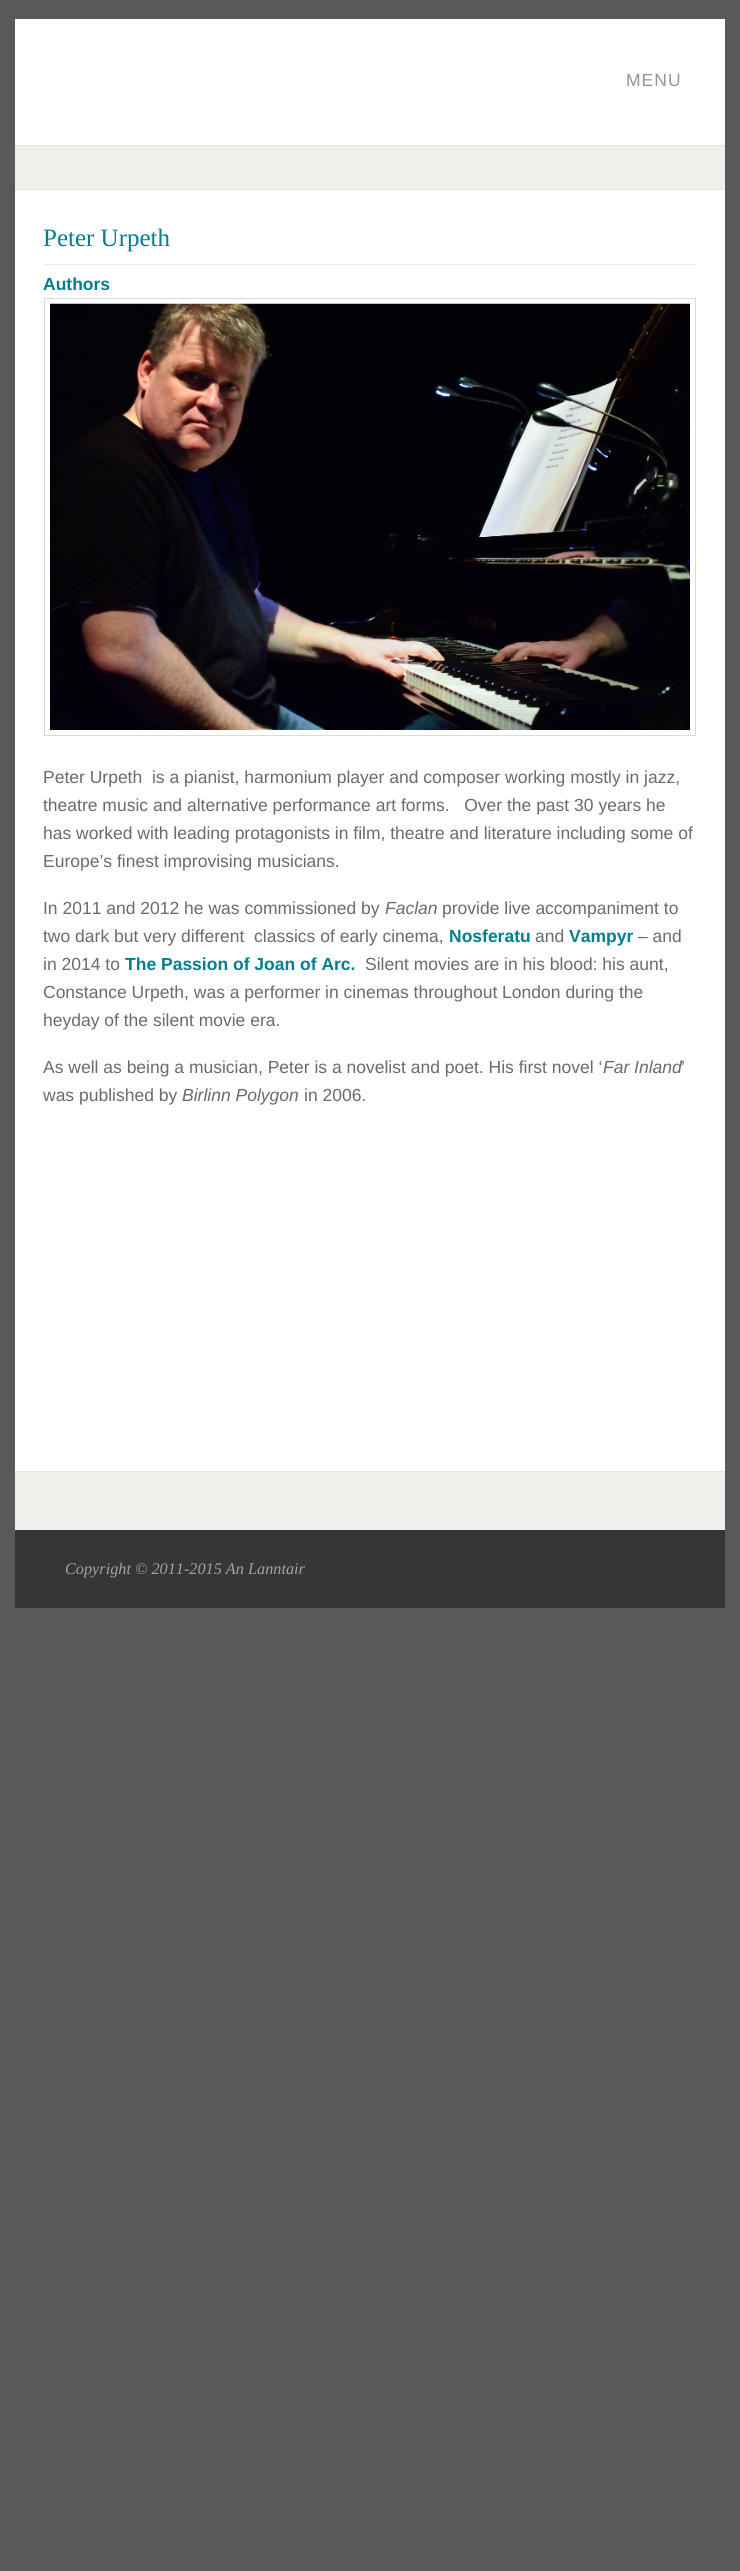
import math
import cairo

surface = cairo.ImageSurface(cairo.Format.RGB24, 740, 2571)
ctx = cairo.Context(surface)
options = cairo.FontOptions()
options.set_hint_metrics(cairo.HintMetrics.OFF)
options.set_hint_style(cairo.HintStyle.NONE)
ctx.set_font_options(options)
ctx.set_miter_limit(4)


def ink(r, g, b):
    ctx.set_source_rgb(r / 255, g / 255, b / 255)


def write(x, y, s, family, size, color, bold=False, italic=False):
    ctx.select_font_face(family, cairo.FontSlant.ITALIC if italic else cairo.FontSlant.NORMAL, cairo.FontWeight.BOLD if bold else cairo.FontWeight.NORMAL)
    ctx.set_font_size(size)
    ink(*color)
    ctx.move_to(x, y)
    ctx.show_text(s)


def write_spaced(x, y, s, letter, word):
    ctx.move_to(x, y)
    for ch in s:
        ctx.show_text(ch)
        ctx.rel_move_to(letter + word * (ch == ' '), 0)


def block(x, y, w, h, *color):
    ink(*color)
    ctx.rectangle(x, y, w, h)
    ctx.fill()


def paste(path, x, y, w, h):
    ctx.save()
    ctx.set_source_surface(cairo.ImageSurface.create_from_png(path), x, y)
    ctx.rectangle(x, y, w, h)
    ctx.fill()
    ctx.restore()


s1 = dict(family="Liberation Serif", size=25, color=(0, 125, 142))
s2 = dict(family="Liberation Sans", size=17.5, color=(0, 125, 142), bold=True)
s3 = dict(family="Liberation Sans", size=17.5, color=(106, 106, 106))
s4 = dict(family="Liberation Sans", size=17.5, color=(106, 106, 106), italic=True)
s5 = dict(family="Liberation Serif", size=16.25, color=(163, 163, 163), italic=True)

ink(89, 89, 89)
ctx.paint()
block(15, 19, 710, 1452, 255, 255, 255)
ctx.select_font_face("Liberation Sans")
ctx.set_font_size(17.5)
ink(149, 149, 149)
write_spaced(626, 86, "MENU", 1, 0)
block(15, 146, 710, 43, 239, 239, 236)
block(15, 145, 710, 1, 230, 230, 230)
block(15, 189, 710, 1, 230, 230, 230)
write(43, 246, "Peter Urpeth", **s1)
block(44, 264, 652, 1, 235, 235, 235)
write(43, 290, "Authors", **s2)
ctx.rectangle(44.5, 298.5, 651, 437)
ink(217, 217, 217)
ctx.set_line_width(1)
ctx.stroke()
paste("pic1.png", 50, 303, 640, 427)
write(43, 783, "Peter Urpeth  is a pianist, harmonium player and composer working mostly in jazz,", **s3)
write(43, 811, "theatre music and alternative performance art forms.   Over the past 30 years he", **s3)
write(43, 839, "has worked with leading protagonists in film, theatre and literature including some of", **s3)
write(43, 867, "Europe’s finest improvising musicians.", **s3)
write(43, 914, "In 2011 and 2012 he was commissioned by", **s3)
write(385, 914, "Faclan", **s4)
write(442, 914, "provide live accompaniment to", **s3)
write(43, 942, "two dark but very different  classics of early cinema,", **s3)
write(449, 942, "Nosferatu", **s2)
write(535, 942, "and", **s3)
write(569, 942, "Vampyr", **s2)
write(638, 942, "– and", **s3)
write(43, 970, "in 2014 to", **s3)
write(125, 970, "The Passion of Joan of Arc.", **s2)
write(365, 970, "Silent movies are in his blood: his aunt,", **s3)
write(43, 998, "Constance Urpeth, was a performer in cinemas throughout London during the", **s3)
write(43, 1026, "heyday of the silent movie era.", **s3)
write(43, 1073, "As well as being a musician, Peter is a novelist and poet. His first novel ‘", **s3)
write(603, 1073, "Far Inland", **s4)
write(681, 1073, "’", **s3)
write(43, 1101, "was published by", **s3)
write(182, 1101, "Birlinn Polygon", **s4)
write(304, 1101, "in 2006.", **s3)
block(15, 1472, 710, 58, 239, 239, 236)
block(15, 1471, 710, 1, 230, 230, 230)
block(15, 1530, 710, 78, 54, 54, 54)
write(65, 1574, "Copyright © 2011-2015 An Lanntair", **s5)
surface.write_to_png("screenshot.png")
